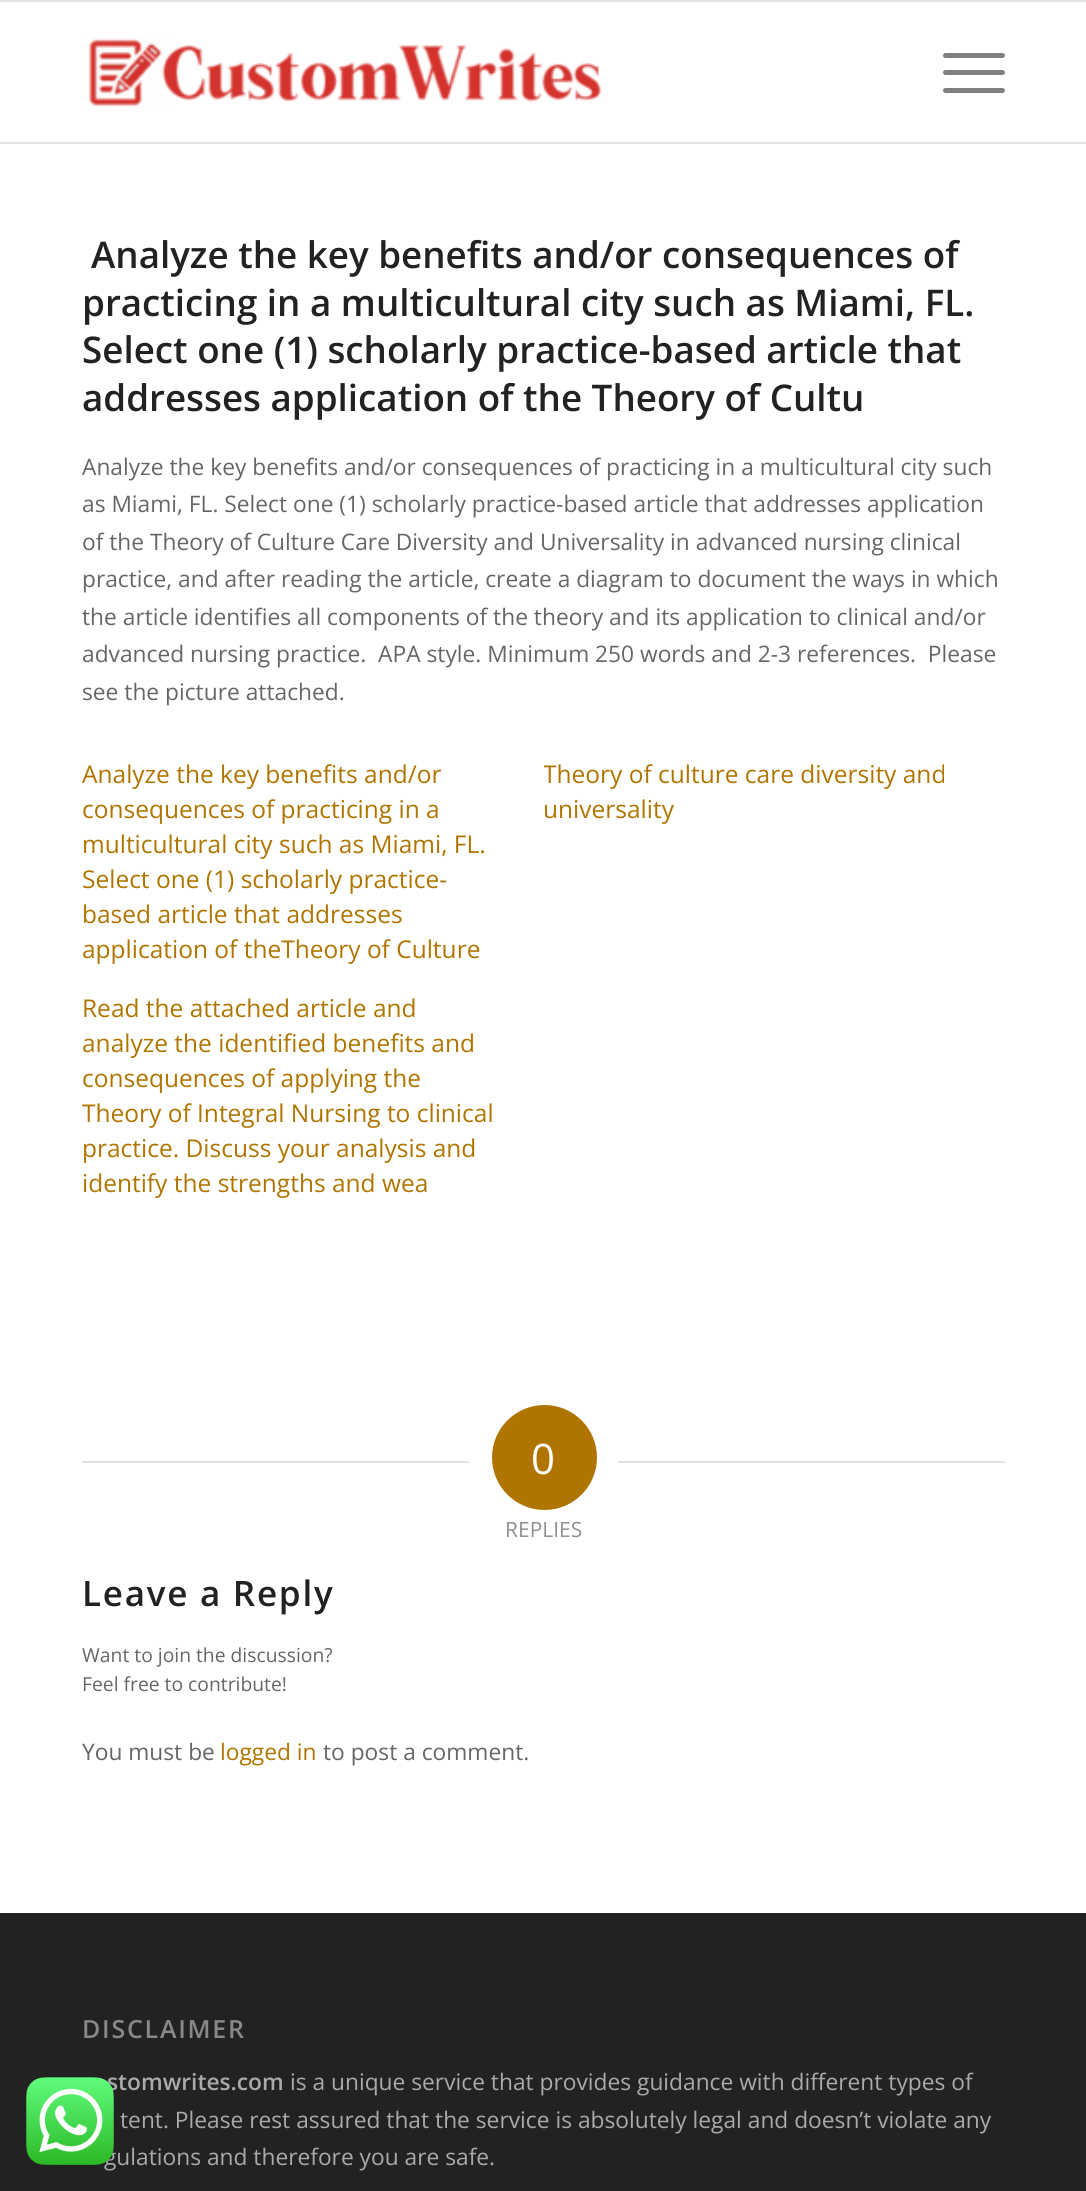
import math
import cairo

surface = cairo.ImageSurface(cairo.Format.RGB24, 1086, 2191)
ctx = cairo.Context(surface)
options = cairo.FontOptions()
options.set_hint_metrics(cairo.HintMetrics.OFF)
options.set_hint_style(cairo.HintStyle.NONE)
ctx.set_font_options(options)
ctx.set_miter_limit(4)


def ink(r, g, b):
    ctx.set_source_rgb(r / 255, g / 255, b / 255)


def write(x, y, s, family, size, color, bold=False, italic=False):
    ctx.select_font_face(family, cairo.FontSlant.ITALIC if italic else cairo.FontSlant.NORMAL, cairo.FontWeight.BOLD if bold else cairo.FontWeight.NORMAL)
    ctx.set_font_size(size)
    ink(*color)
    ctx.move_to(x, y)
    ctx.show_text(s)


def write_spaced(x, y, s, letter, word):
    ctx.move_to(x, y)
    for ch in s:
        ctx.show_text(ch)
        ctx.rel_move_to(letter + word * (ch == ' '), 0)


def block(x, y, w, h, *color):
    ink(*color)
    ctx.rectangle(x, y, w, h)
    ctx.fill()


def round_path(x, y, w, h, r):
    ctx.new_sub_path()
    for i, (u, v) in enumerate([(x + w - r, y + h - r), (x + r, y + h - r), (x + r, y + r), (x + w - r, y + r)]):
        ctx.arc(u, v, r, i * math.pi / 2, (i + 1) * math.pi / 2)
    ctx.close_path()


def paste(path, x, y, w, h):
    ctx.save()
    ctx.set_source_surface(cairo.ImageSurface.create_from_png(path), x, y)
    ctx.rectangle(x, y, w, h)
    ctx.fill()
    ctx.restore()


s1 = dict(family="Open Sans SemiBold", size=22.75, color=(170, 170, 170))
s2 = dict(family="Open Sans", size=22.75, color=(170, 170, 170))
s3 = dict(family="Open Sans SemiBold", size=36.75, color=(34, 34, 34))
s4 = dict(family="Open Sans", size=22.75, color=(102, 102, 102))
s5 = dict(family="Open Sans", size=24.5, color=(176, 117, 0))
s6 = dict(family="Open Sans", size=42, color=(255, 255, 255))
s7 = dict(family="Open Sans", size=21, color=(145, 145, 145))
s8 = dict(family="Open Sans", size=19.3, color=(102, 102, 102))
s9 = dict(family="Open Sans", size=22.75, color=(176, 117, 0))

ink(255, 255, 255)
ctx.paint()
block(0, 1913, 1086, 278, 34, 34, 34)
write(107, 2090, "stomwrites.com", **s1)
write(104, 2165, "gulations and therefore you are safe.", **s2)
paste("pic1.png", 26, 2077, 88, 88)
block(0, 0, 1086, 2, 225, 225, 225)
block(0, 142, 1086, 2, 225, 225, 225)
paste("pic2.png", 87, 38, 515, 69)
ink(128, 128, 128)
round_path(943, 70, 62, 5, 2.5)
ctx.fill()
round_path(943, 53, 62, 5, 2.5)
ctx.fill()
round_path(943, 88, 62, 5, 2.5)
ctx.fill()
write(91, 268, "Analyze the key benefits and/or consequences of", **s3)
write(82, 316, "practicing in a multicultural city such as Miami, FL.", **s3)
write(82, 363, "Select one (1) scholarly practice-based article that", **s3)
write(82, 411, "addresses application of the Theory of Cultu", **s3)
write(82, 475, "Analyze the key benefits and/or consequences of practicing in a multicultural city such", **s4)
write(82, 512, "as Miami, FL. Select one (1) scholarly practice-based article that addresses application", **s4)
write(82, 550, "of the Theory of Culture Care Diversity and Universality in advanced nursing clinical", **s4)
write(82, 587, "practice, and after reading the article, create a diagram to document the ways in which", **s4)
write(82, 625, "the article identifies all components of the theory and its application to clinical and/or", **s4)
write(82, 662, "advanced nursing practice.  APA style. Minimum 250 words and 2-3 references.  Please", **s4)
write(82, 700, "see the picture attached.", **s4)
write(82, 783, "Analyze the key benefits and/or", **s5)
write(82, 818, "consequences of practicing in a", **s5)
write(82, 853, "multicultural city such as Miami, FL.", **s5)
write(82, 888, "Select one (1) scholarly practice-", **s5)
write(82, 923, "based article that addresses", **s5)
write(82, 958, "application of theTheory of Culture", **s5)
ctx.save()
ctx.rectangle(544, 756, 415, 70)
ctx.clip()
write(543, 783, "Theory of culture care diversity and", **s5)
ctx.restore()
write(543, 818, "universality", **s5)
write(82, 1017, "Read the attached article and", **s5)
write(82, 1052, "analyze the identified benefits and", **s5)
write(82, 1087, "consequences of applying the", **s5)
ctx.save()
ctx.rectangle(82, 991, 415, 210)
ctx.clip()
write(82, 1122, "Theory of Integral Nursing to clinical", **s5)
ctx.restore()
write(82, 1157, "practice. Discuss your analysis and", **s5)
write(82, 1192, "identify the strengths and wea", **s5)
block(82, 1461, 387, 2, 225, 225, 225)
ink(176, 117, 0)
ctx.new_path()
ctx.arc(544.5, 1457.5, 52.5, 0, 2 * math.pi)
ctx.fill()
write(531, 1474, "0", **s6)
block(618, 1461, 387, 2, 225, 225, 225)
write(505, 1537, "REPLIES", **s7)
ctx.select_font_face("Open Sans SemiBold")
ctx.set_font_size(35)
ink(34, 34, 34)
write_spaced(82, 1606, "Leave a Reply", 1.75, 0)
write(82, 1662, "Want to join the discussion?", **s8)
write(82, 1691, "Feel free to contribute!", **s8)
write(82, 1760, "You must be", **s4)
write(220, 1760, "logged in", **s9)
write(323, 1760, "to post a comment.", **s4)
ctx.select_font_face("Open Sans SemiBold")
ctx.set_font_size(25)
ink(136, 136, 136)
write_spaced(82, 2038, "DISCLAIMER", 1.75, 0)
write(290, 2090, "is a unique service that provides guidance with different types of", **s2)
write(120, 2128, "tent. Please rest assured that the service is absolutely legal and doesn’t violate any", **s2)
surface.write_to_png("screenshot.png")
